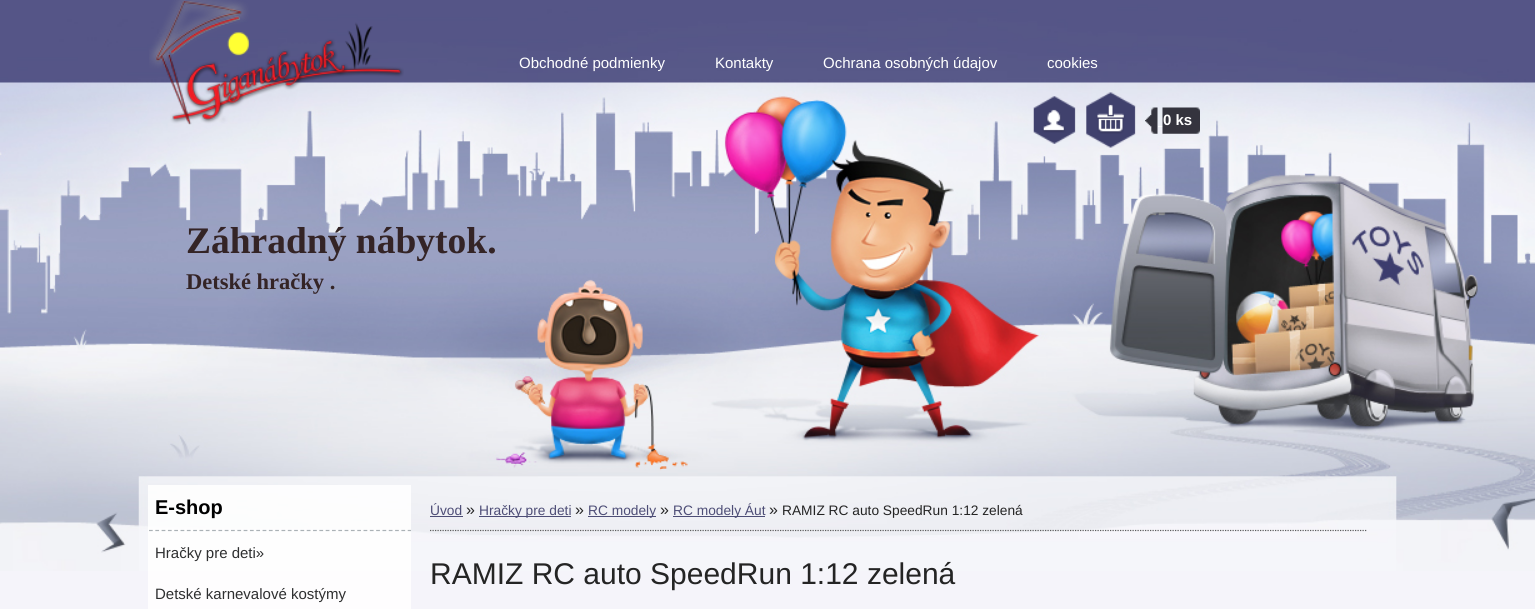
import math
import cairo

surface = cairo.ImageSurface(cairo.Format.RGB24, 1535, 609)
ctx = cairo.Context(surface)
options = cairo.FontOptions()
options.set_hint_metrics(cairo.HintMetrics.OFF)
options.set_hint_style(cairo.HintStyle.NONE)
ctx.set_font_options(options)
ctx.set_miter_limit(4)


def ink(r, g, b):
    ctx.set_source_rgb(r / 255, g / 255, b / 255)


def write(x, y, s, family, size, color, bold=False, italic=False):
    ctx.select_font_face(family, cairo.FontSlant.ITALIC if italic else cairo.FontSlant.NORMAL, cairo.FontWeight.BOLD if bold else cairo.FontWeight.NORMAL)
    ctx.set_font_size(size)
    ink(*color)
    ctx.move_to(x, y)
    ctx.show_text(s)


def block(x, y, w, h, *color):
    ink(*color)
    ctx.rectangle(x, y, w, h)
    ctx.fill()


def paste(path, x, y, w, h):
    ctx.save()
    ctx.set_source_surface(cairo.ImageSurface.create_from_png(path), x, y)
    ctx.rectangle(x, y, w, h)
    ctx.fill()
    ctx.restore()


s1 = dict(family="Liberation Sans", size=15, color=(255, 255, 255))
s2 = dict(family="Liberation Sans", size=15, color=(255, 255, 255), bold=True)
s3 = dict(family="Liberation Serif", size=37.5, color=(52, 36, 38), bold=True)
s4 = dict(family="Liberation Serif", size=22.5, color=(52, 36, 38), bold=True)
s5 = dict(family="Liberation Sans", size=20, color=(0, 0, 0), bold=True)
s6 = dict(family="Liberation Sans", size=15, color=(46, 47, 48))
s7 = dict(family="Liberation Sans", size=13.75, color=(77, 77, 118))
s8 = dict(family="Liberation Sans", size=16, color=(36, 36, 36))
s9 = dict(family="Liberation Sans", size=13.75, color=(36, 36, 36))
s10 = dict(family="Liberation Sans", size=30, color=(36, 36, 36))

ink(245, 244, 250)
ctx.paint()
paste("pic1.png", 0, 0, 1535, 571)
paste("pic2.png", 262, 122, 1131, 314)
write(519, 68, "Obchodné podmienky", **s1)
write(715, 68, "Kontakty", **s1)
write(823, 68, "Ochrana osobných údajov", **s1)
write(1047, 68, "cookies", **s1)
paste("pic3.png", 1033, 96, 43, 48)
paste("pic4.png", 1086, 92, 50, 56)
paste("pic5.png", 1145, 107, 13, 27)
block(1158, 126, 5, 1, 255, 255, 255)
paste("pic6.png", 1162, 107, 38, 27)
write(1163, 125, "0 ks", **s2)
paste("pic7.png", 149, 0, 255, 125)
write(186, 253, "Záhradný nábytok.", **s3)
write(186, 289, "Detské hračky .", **s4)
ctx.set_source_rgba(1, 1, 1, 0.86)
ctx.rectangle(148, 485, 263, 124)
ctx.fill()
ctx.new_path()
ctx.move_to(149, 530.5)
ctx.line_to(411, 530.5)
ink(171, 178, 182)
ctx.set_line_width(1.2)
ctx.set_dash([3.75, 2.56])
ctx.stroke()
write(155, 514, "E-shop", **s5)
write(155, 558, "Hračky pre deti»", **s6)
write(155, 599, "Detské karnevalové kostýmy", **s6)
ctx.new_path()
ctx.move_to(430, 530.5)
ctx.line_to(1367.5, 530.5)
ink(92, 92, 92)
ctx.set_dash([1.25, 1.25])
ctx.stroke()
write(430, 515, "Úvod", **s7)
block(430, 516, 33, 1, 77, 77, 118)
write(466, 515, "»", **s8)
block(479, 516, 92, 1, 77, 77, 118)
write(479, 515, "Hračky pre deti", **s7)
write(575, 515, "»", **s8)
block(588, 516, 68, 1, 77, 77, 118)
write(588, 515, "RC modely", **s7)
write(660, 515, "»", **s8)
block(673, 516, 92, 1, 77, 77, 118)
write(673, 515, "RC modely Áut", **s7)
write(769, 515, "»", **s8)
write(782, 515, "RAMIZ RC auto SpeedRun 1:12 zelená", **s9)
write(430, 584, "RAMIZ RC auto SpeedRun 1:12 zelená", **s10)
surface.write_to_png("screenshot.png")
